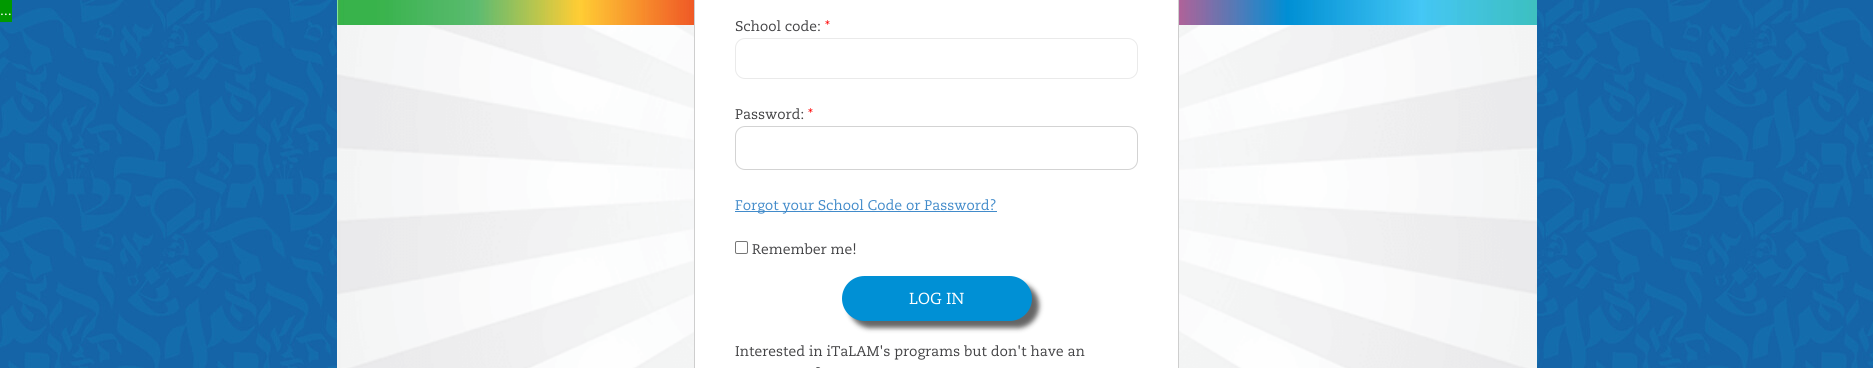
import math
import cairo

surface = cairo.ImageSurface(cairo.Format.RGB24, 1873, 368)
ctx = cairo.Context(surface)
options = cairo.FontOptions()
options.set_hint_metrics(cairo.HintMetrics.OFF)
options.set_hint_style(cairo.HintStyle.NONE)
ctx.set_font_options(options)
ctx.set_miter_limit(4)


def ink(r, g, b):
    ctx.set_source_rgb(r / 255, g / 255, b / 255)


def block(x, y, w, h, *color):
    ink(*color)
    ctx.rectangle(x, y, w, h)
    ctx.fill()


def round_path(x, y, w, h, r):
    ctx.new_sub_path()
    for i, (u, v) in enumerate([(x + w - r, y + h - r), (x + r, y + h - r), (x + r, y + r), (x + w - r, y + r)]):
        ctx.arc(u, v, r, i * math.pi / 2, (i + 1) * math.pi / 2)
    ctx.close_path()


def blur_box(x, y, w, h, r, blur, alpha):
    ctx.push_group_with_content(cairo.Content.ALPHA)
    ctx.set_operator(cairo.Operator.SOURCE)
    for i in range(15, -16, -2):
        e = blur * i / 6
        if min(w, h) + 2 * e > 0:
            ctx.set_source_rgba(0, 0, 0, alpha * math.erfc((i - 1) / 8.5) / 2)
            round_path(x - e, y - e, w + 2 * e, h + 2 * e, max(0, min(r + e + blur * .6, min(w, h) / 2 + e)))
            ctx.fill()
    ctx.mask(ctx.pop_group())


def paste(path, x, y, w, h):
    ctx.save()
    ctx.set_source_surface(cairo.ImageSurface.create_from_png(path), x, y)
    ctx.rectangle(x, y, w, h)
    ctx.fill()
    ctx.restore()


ink(255, 255, 255)
ctx.paint()
paste("pic1.png", 0, 0, 1873, 368)
block(0, 0, 12, 22, 0, 153, 0)
paste("pic2.png", 1, 13, 10, 3)
paste("pic3.png", 337, 25, 1200, 343)
paste("pic12.png", 337, 0, 1200, 25)
ink(255, 255, 255)
ctx.rectangle(694.5, -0.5, 484, 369)
ctx.fill_preserve()
ink(206, 206, 206)
ctx.set_line_width(1)
ctx.stroke()
paste("pic4.png", 735, 20, 85, 12)
paste("pic5.png", 825, 20, 5, 5)
round_path(735.5, 38.5, 402, 40, 9.5)
ink(234, 234, 234)
ctx.stroke()
paste("pic6.png", 735, 108, 69, 12)
paste("pic5.png", 808, 108, 5, 5)
round_path(735.5, 126.5, 402, 43, 9.5)
ink(211, 211, 211)
ctx.stroke()
block(735, 211, 262, 1, 66, 139, 202)
paste("pic7.png", 735, 199, 261, 15)
round_path(735.5, 241.5, 12, 12, 1.5)
ink(118, 118, 118)
ctx.stroke()
paste("pic8.png", 752, 243, 104, 12)
ink(50, 50, 50)
blur_box(849, 283, 190, 45, 22.5, 2.5, 0.75)
ink(0, 144, 213)
round_path(842, 276, 190, 45, 22.5)
ctx.fill()
paste("pic9.png", 909, 292, 55, 13)
paste("pic10.png", 735, 345, 350, 15)
paste("pic11.png", 816, 367, 5, 1)
surface.write_to_png("screenshot.png")
